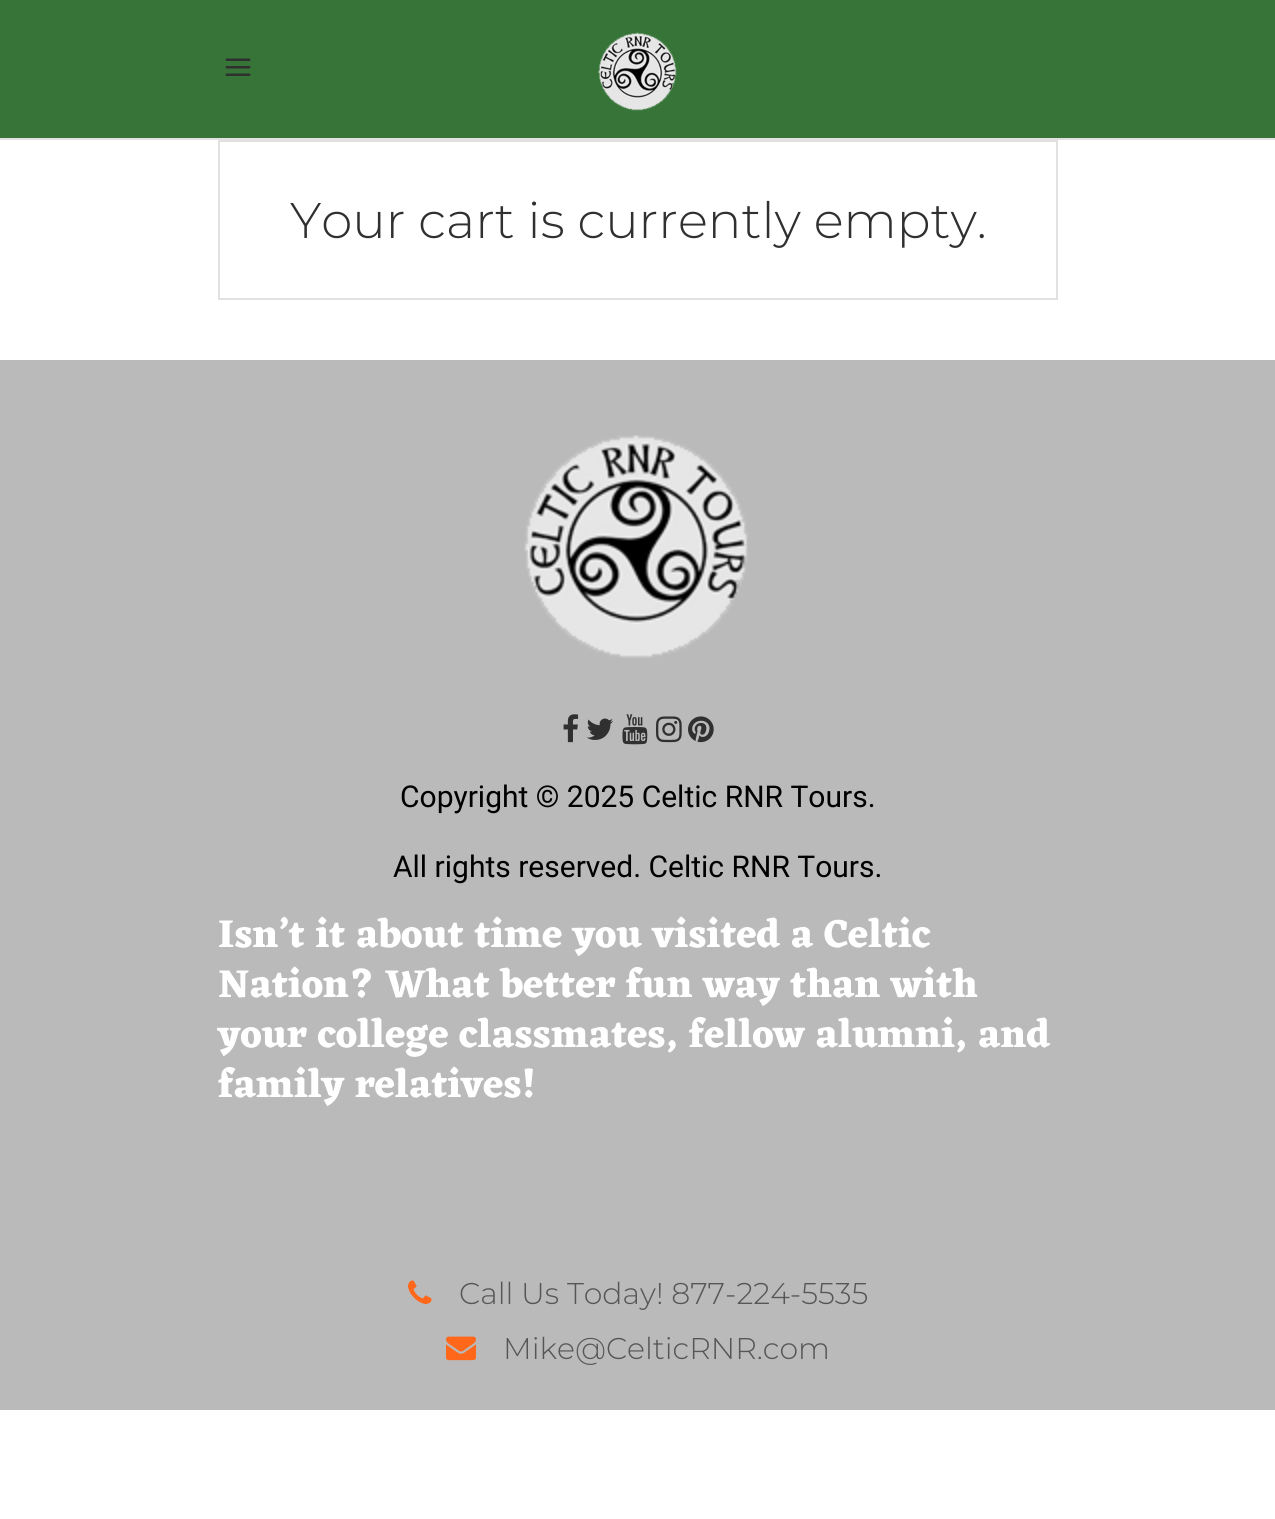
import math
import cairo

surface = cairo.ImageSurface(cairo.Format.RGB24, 1275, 1519)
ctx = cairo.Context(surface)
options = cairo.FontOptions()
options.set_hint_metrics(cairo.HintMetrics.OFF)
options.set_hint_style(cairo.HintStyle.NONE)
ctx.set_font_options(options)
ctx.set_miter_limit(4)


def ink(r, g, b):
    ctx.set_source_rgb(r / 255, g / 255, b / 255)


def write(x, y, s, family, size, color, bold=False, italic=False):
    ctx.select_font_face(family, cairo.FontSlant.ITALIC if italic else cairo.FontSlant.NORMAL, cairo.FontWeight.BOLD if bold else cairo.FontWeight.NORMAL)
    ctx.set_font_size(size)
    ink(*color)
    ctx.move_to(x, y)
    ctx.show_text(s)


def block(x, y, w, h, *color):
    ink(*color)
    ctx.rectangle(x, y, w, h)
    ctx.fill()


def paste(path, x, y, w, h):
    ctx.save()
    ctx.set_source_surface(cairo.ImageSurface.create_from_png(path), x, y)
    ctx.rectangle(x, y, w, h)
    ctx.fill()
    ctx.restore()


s1 = dict(family="Montserrat Light", size=50, color=(48, 48, 48))
s2 = dict(family="Roboto", size=30, color=(0, 0, 0))
s3 = dict(family="Eczar", size=40, color=(255, 255, 255), bold=True)
s4 = dict(family="Montserrat Light", size=30, color=(86, 86, 86))

ink(255, 255, 255)
ctx.paint()
block(0, 0, 1275, 138, 55, 116, 56)
block(0, 138, 1275, 2, 225, 225, 225)
paste("pic1.png", 225, 58, 26, 18)
paste("pic2.png", 598, 32, 79, 79)
ctx.rectangle(219, 141, 838, 158)
ctx.stroke()
write(290, 238, "Your cart is currently empty.", **s1)
block(0, 360, 1275, 1050, 186, 186, 186)
paste("pic3.png", 524, 435, 224, 223)
paste("pic4.png", 563, 714, 16, 29)
paste("pic5.png", 587, 718, 26, 22)
paste("pic6.png", 622, 714, 26, 31)
paste("pic7.png", 656, 716, 26, 27)
paste("pic8.png", 688, 716, 26, 27)
write(400, 807, "Copyright © 2025 Celtic RNR Tours.", **s2)
write(393, 877, "All rights reserved. Celtic RNR Tours.", **s2)
write(218, 947, "Isn’t it about time you visited a Celtic", **s3)
write(218, 997, "Nation? What better fun way than with", **s3)
write(218, 1047, "your college classmates, fellow alumni, and", **s3)
write(218, 1097, "family relatives!", **s3)
paste("pic9.png", 408, 1280, 24, 24)
write(459, 1304, "Call Us Today! 877-224-5535", **s4)
paste("pic10.png", 446, 1336, 30, 25)
write(503, 1359, "Mike@CelticRNR.com", **s4)
surface.write_to_png("screenshot.png")
